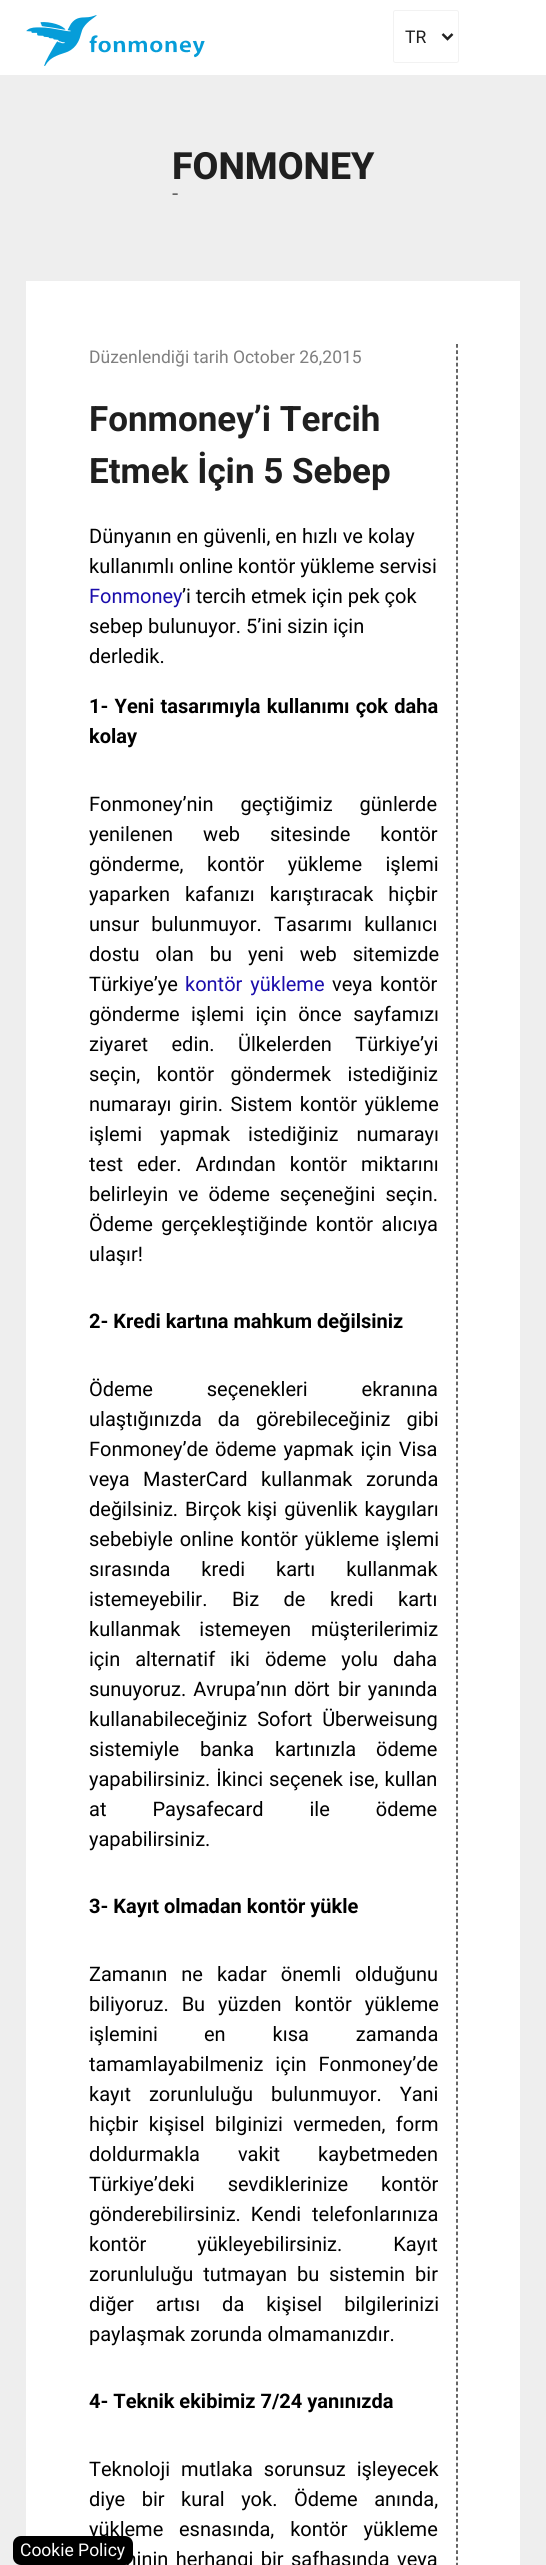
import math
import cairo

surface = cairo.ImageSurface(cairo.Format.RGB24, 546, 2565)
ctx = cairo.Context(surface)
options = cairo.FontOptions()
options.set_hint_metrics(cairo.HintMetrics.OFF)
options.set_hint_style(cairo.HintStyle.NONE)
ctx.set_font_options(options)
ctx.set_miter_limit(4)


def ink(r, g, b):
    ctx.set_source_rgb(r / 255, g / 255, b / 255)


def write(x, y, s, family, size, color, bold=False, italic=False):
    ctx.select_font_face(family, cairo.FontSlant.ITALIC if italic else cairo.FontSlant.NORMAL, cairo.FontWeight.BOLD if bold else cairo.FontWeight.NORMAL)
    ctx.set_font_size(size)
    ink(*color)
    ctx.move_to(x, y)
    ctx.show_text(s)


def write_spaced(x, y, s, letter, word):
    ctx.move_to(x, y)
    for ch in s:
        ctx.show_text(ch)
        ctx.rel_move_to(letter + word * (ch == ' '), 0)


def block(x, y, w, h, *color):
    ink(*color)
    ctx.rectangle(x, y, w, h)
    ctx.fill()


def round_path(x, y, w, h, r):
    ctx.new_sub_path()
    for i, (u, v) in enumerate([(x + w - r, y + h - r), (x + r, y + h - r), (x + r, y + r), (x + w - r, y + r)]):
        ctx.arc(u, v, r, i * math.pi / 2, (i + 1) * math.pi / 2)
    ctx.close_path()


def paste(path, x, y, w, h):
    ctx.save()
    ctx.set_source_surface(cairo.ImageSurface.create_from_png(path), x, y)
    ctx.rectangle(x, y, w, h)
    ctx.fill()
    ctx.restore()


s1 = dict(family="Roboto", size=17.5, color=(31, 31, 31))
s2 = dict(family="Roboto", size=17.5, color=(255, 255, 255))
s3 = dict(family="Roboto ExtraBold", size=37.5, color=(31, 31, 31))
s4 = dict(family="Roboto Light", size=22, color=(31, 31, 31))
s5 = dict(family="Roboto", size=17.5, color=(127, 127, 127))
s6 = dict(family="Roboto", size=35, color=(31, 31, 31), bold=True)
s7 = dict(family="Roboto", size=20, color=(0, 0, 0))
s8 = dict(family="Roboto", size=20, color=(26, 13, 171))
s9 = dict(family="Roboto", size=20, color=(0, 0, 0), bold=True)

ink(255, 255, 255)
ctx.paint()
paste("pic1.png", 26, 15, 179, 51)
round_path(393.5, 10.5, 65, 52, 2)
ink(242, 242, 242)
ctx.set_line_width(1)
ctx.stroke()
ctx.new_path()
ctx.move_to(442.5, 34)
ctx.line_to(447.5, 39)
ctx.line_to(452.5, 34)
ink(33, 33, 33)
ctx.set_line_width(2.5)
ctx.stroke()
write(405, 43, "TR", **s1)
block(0, 75, 546, 2490, 238, 238, 238)
block(26, 281, 494, 2284, 255, 255, 255)
ink(0, 0, 0)
round_path(13, 2536, 120, 29, 8)
ctx.fill()
ctx.set_font_size(20)
write_spaced(119, 2566, "minin herhangi bir safhasında veya", 0, 2.5)
write(20, 2556, "Cookie Policy", **s2)
write(172, 179, "FONMONEY", **s3)
write(172, 201, "-", **s4)
ctx.new_path()
ctx.move_to(457, 344)
ctx.line_to(457, 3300)
ink(0, 0, 0)
ctx.set_line_width(1.2)
ctx.set_dash([3.75, 2.5])
ctx.stroke()
write(89, 363, "Düzenlendiği tarih October 26,2015", **s5)
write(89, 431, "Fonmoney’i Tercih", **s6)
write(89, 483, "Etmek İçin 5 Sebep", **s6)
write(89, 543, "Dünyanın en güvenli, en hızlı ve kolay", **s7)
write(89, 573, "kullanımlı online kontör yükleme servisi", **s7)
write(89, 603, "Fonmoney", **s8)
write(182, 603, "’i tercih etmek için pek çok", **s7)
write(89, 633, "sebep bulunuyor. 5’ini sizin için", **s7)
write(89, 663, "derledik.", **s7)
ctx.select_font_face("Roboto", cairo.FontSlant.NORMAL, cairo.FontWeight.BOLD)
write_spaced(89, 713, "1- Yeni tasarımıyla kullanımı çok daha", 0, 1.25)
write(89, 743, "kolay", **s9)
ctx.select_font_face("Roboto")
write_spaced(89, 811, "Fonmoney’nin geçtiğimiz günlerde", 0, 22)
write_spaced(89, 841, "yenilenen web sitesinde kontör", 0, 25)
write(89, 871, "gönderme,", **s7)
write_spaced(207, 871, "kontör yükleme işlemi", 0, 18.5)
write_spaced(89, 901, "yaparken kafanızı karıştıracak hiçbir", 0, 10)
write_spaced(89, 931, "unsur bulunmuyor.", 0, 7)
write_spaced(274, 931, "Tasarımı kullanıcı", 0, 7)
write_spaced(89, 961, "dostu olan bu yeni web sitemizde", 0, 11)
write(89, 991, "Türkiye’ye", **s7)
ink(26, 13, 171)
write_spaced(185, 991, "kontör yükleme", 0, 3)
write(332, 991, "veya", **s7)
write(380, 991, "kontör", **s7)
write_spaced(89, 1021, "gönderme işlemi için önce sayfamızı", 0, 6.5)
write_spaced(89, 1051, "ziyaret edin. Ülkelerden Türkiye’yi", 0, 18.5)
write_spaced(89, 1081, "seçin, kontör göndermek istediğiniz", 0, 11.5)
write_spaced(89, 1111, "numarayı girin. Sistem kontör yükleme", 0, 2.5)
write_spaced(89, 1141, "işlemi yapmak istediğiniz numarayı", 0, 13)
write_spaced(89, 1171, "test eder. Ardından kontör miktarını", 0, 9)
write_spaced(89, 1201, "belirleyin ve ödeme seçeneğini seçin.", 0, 5)
write_spaced(89, 1231, "Ödeme gerçekleştiğinde kontör alıcıya", 0, 3.5)
write(89, 1261, "ulaşır!", **s7)
write(89, 1328, "2- Kredi kartına mahkum değilsiniz", **s9)
ctx.select_font_face("Roboto")
write_spaced(89, 1396, "Ödeme seçenekleri ekranına", 0, 49)
write_spaced(89, 1426, "ulaştığınızda da görebileceğiniz gibi", 0, 11)
write(89, 1456, "Fonmoney’de", **s7)
write_spaced(215, 1456, "ödeme yapmak için Visa", 0, 2)
write_spaced(89, 1486, "veya MasterCard kullanmak zorunda", 0, 8.5)
write_spaced(89, 1516, "değilsiniz. Birçok", 0, 2)
write_spaced(247, 1516, "kişi güvenlik kaygıları", 0, 2)
write_spaced(89, 1546, "sebebiyle online kontör yükleme işlemi", 0, 2)
write_spaced(89, 1576, "sırasında kredi", 0, 26)
write_spaced(276, 1576, "kartı kullanmak", 0, 26)
write_spaced(89, 1606, "istemeyebilir. Biz de kredi kartı", 0, 19.5)
write_spaced(89, 1636, "kullanmak istemeyen", 0, 14)
write(311, 1636, "müşterilerimiz", **s7)
write_spaced(89, 1666, "için alternatif iki ödeme yolu daha", 0, 10)
write_spaced(89, 1696, "sunuyoruz. Avrupa’nın dört", 0, 2)
write_spaced(338, 1696, "bir yanında", 0, 2)
write_spaced(89, 1726, "kullanabileceğiniz Sofort Überweisung", 0, 5)
write_spaced(89, 1756, "sistemiyle banka kartınızla", 0, 16)
write(376, 1756, "ödeme", **s7)
write_spaced(89, 1786, "yapabilirsiniz. İkinci seçenek ise, kullan", 0, 1)
write_spaced(89, 1816, "at Paysafecard ile ödeme", 0, 41)
write(89, 1846, "yapabilirsiniz.", **s7)
write(89, 1913, "3- Kayıt olmadan kontör yükle", **s9)
ctx.select_font_face("Roboto")
write_spaced(89, 1981, "Zamanın ne kadar önemli olduğunu", 0, 9)
write_spaced(89, 2011, "biliyoruz. Bu yüzden kontör yükleme", 0, 8)
write(89, 2041, "işlemini", **s7)
write_spaced(204, 2041, "en kısa zamanda", 0, 42)
write_spaced(89, 2071, "tamamlayabilmeniz için Fonmoney’de", 0, 7)
write_spaced(89, 2101, "kayıt zorunluluğu", 0, 13)
write_spaced(271, 2101, "bulunmuyor. Yani", 0, 13)
write_spaced(89, 2131, "hiçbir kişisel bilginizi vermeden, form", 0, 5.5)
write_spaced(89, 2161, "doldurmakla vakit", 0, 33)
write(318, 2161, "kaybetmeden", **s7)
write_spaced(89, 2191, "Türkiye’deki sevdiklerinize kontör", 0, 28)
write_spaced(89, 2221, "gönderebilirsiniz. Kendi", 0, 5)
write(312, 2221, "telefonlarınıza", **s7)
write_spaced(89, 2251, "kontör yükleyebilirsiniz. Kayıt", 0, 46)
write_spaced(89, 2281, "zorunluluğu tutmayan bu", 0, 5)
write_spaced(329, 2281, "sistemin bir", 0, 5)
write_spaced(89, 2311, "diğer artısı da kişisel bilgilerinizi", 0, 17)
write(89, 2341, "paylaşmak zorunda olmamanızdır.", **s7)
write(89, 2408, "4- Teknik ekibimiz 7/24 yanınızda", **s9)
ctx.select_font_face("Roboto")
write_spaced(89, 2476, "Teknoloji mutlaka sorunsuz işleyecek", 0, 6)
write_spaced(89, 2506, "diye bir kural yok. Ödeme anında,", 0, 11.5)
write(89, 2536, "yükleme", **s7)
write_spaced(179, 2536, "esnasında, kontör yükleme", 0, 11)
surface.write_to_png("screenshot.png")
